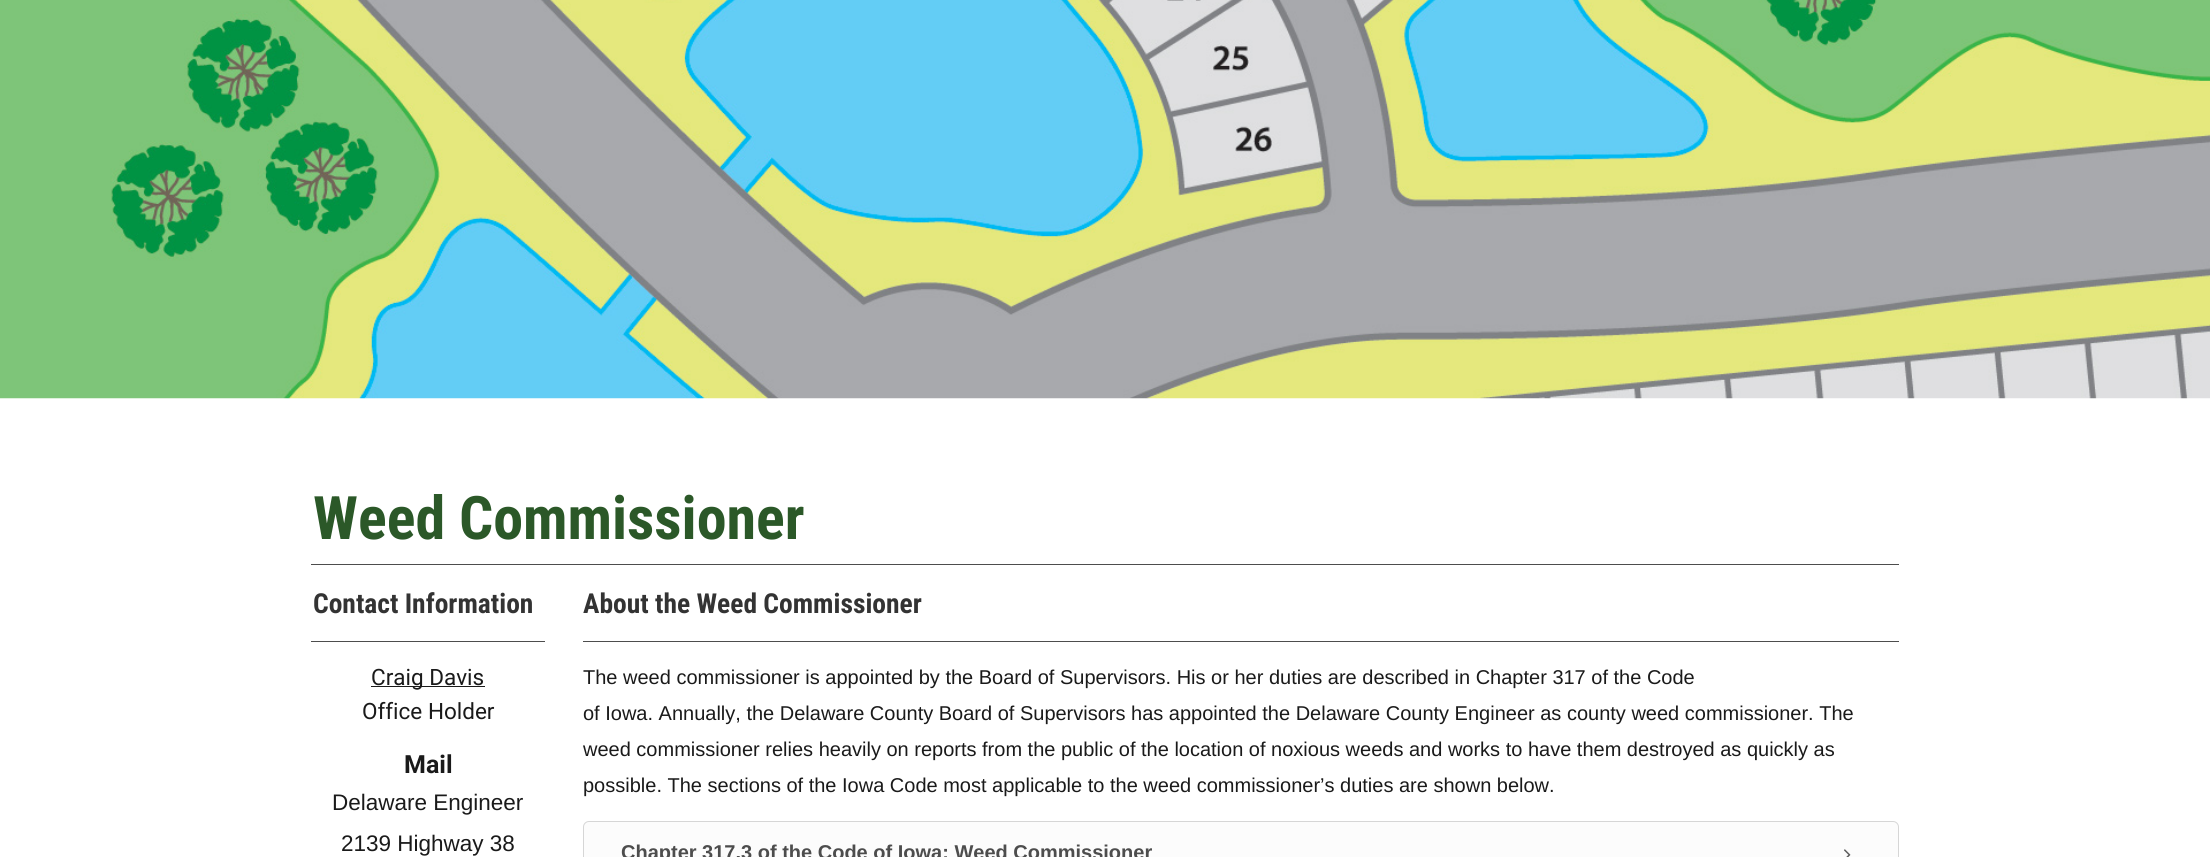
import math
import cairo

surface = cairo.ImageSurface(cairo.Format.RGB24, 2210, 857)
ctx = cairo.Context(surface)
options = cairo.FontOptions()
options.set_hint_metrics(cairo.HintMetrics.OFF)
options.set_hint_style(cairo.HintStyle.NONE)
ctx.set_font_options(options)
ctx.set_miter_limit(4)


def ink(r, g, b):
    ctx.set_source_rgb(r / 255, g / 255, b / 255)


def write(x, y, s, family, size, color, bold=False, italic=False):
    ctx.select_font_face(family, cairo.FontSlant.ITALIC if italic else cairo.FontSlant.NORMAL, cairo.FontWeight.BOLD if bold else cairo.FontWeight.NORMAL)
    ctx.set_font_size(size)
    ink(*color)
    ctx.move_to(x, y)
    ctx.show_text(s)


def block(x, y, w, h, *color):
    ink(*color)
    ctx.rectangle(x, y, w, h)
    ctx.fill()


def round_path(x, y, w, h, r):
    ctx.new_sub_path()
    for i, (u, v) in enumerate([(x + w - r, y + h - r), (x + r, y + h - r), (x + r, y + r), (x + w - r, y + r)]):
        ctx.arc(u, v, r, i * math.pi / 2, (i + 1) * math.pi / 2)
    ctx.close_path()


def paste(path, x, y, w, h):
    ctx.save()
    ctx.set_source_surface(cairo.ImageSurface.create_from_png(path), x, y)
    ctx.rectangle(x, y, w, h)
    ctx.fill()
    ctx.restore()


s1 = dict(family="Roboto Condensed", size=60, color=(43, 88, 40), bold=True)
s2 = dict(family="Roboto Condensed", size=27.5, color=(51, 51, 51), bold=True)
s3 = dict(family="Roboto", size=22.5, color=(26, 26, 26))
s4 = dict(family="Roboto", size=25, color=(26, 26, 26), bold=True)
s5 = dict(family="Liberation Sans", size=22.5, color=(26, 26, 26))
s6 = dict(family="Liberation Sans", size=20, color=(26, 26, 26))
s7 = dict(family="Liberation Sans", size=20, color=(77, 77, 77), bold=True)

ink(255, 255, 255)
ctx.paint()
paste("pic1.png", 0, 0, 2210, 399)
write(313, 539, "Weed Commissioner", **s1)
block(311, 564, 1588, 1, 77, 77, 77)
write(313, 613, "Contact Information", **s2)
block(311, 641, 234, 1, 77, 77, 77)
block(371, 686, 114, 1, 26, 26, 26)
write(371, 685, "Craig Davis", **s3)
write(362, 719, "Office Holder", **s3)
write(404, 773, "Mail", **s4)
write(332, 810, "Delaware Engineer", **s5)
write(341, 851, "2139 Highway 38", **s5)
write(583, 613, "About the Weed Commissioner", **s2)
block(583, 641, 1316, 1, 77, 77, 77)
write(583, 684, "The weed commissioner is appointed by the Board of Supervisors. His or her duties are described in Chapter 317 of the Code", **s6)
write(583, 720, "of Iowa. Annually, the Delaware County Board of Supervisors has appointed the Delaware County Engineer as county weed commissioner. The", **s6)
write(583, 756, "weed commissioner relies heavily on reports from the public of the location of noxious weeds and works to have them destroyed as quickly as", **s6)
write(583, 792, "possible. The sections of the Iowa Code most applicable to the weed commissioner’s duties are shown below.", **s6)
ink(252, 252, 252)
round_path(583.5, 821.5, 1315, 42, 5.5)
ctx.fill_preserve()
ink(214, 214, 214)
ctx.set_line_width(1)
ctx.stroke()
write(621, 859, "Chapter 317.3 of the Code of Iowa: Weed Commissioner", **s7)
paste("pic2.png", 1844, 849, 7, 8)
surface.write_to_png("screenshot.png")
